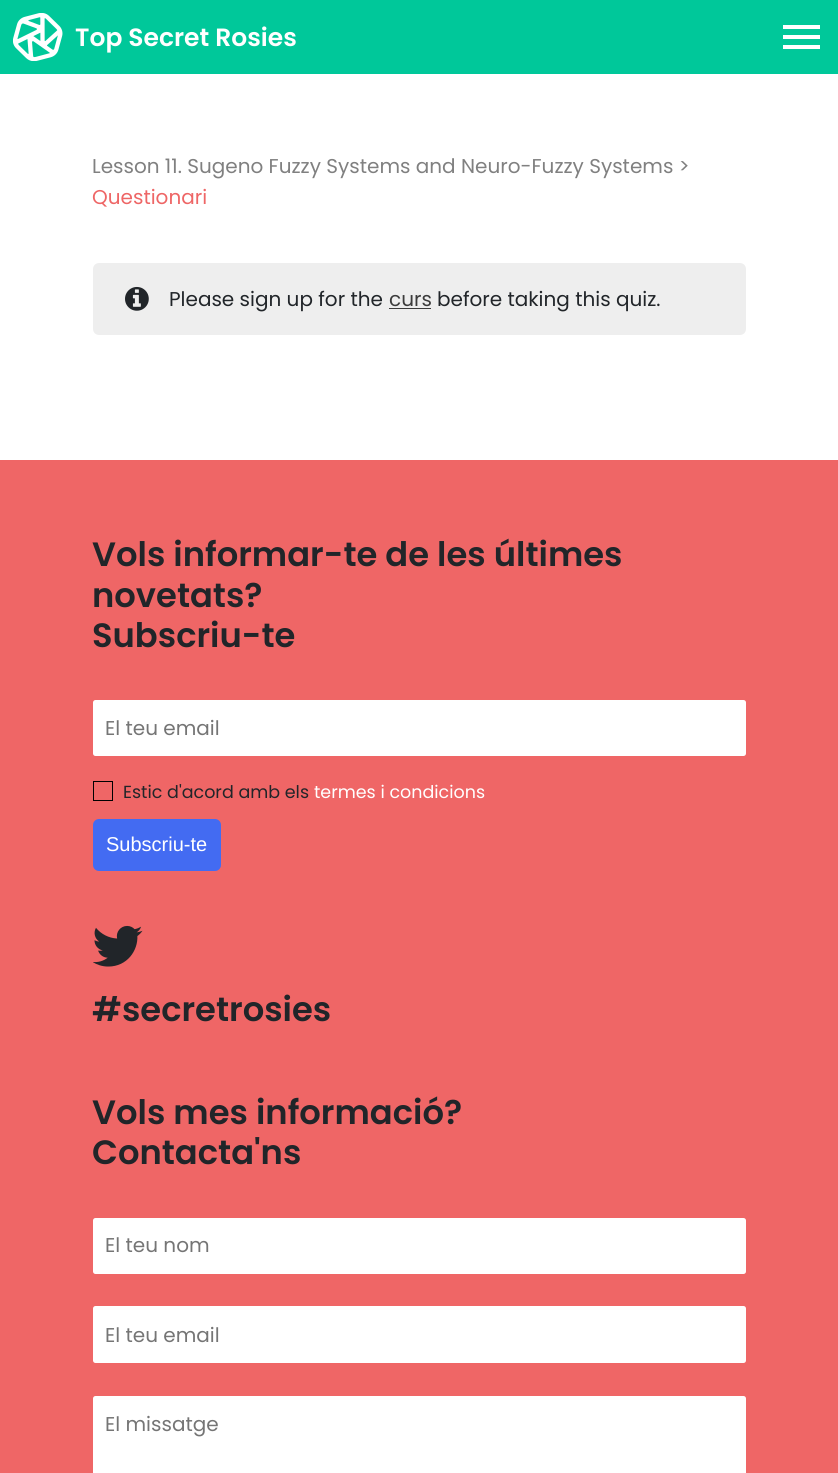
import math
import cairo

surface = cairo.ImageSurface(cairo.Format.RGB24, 838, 1473)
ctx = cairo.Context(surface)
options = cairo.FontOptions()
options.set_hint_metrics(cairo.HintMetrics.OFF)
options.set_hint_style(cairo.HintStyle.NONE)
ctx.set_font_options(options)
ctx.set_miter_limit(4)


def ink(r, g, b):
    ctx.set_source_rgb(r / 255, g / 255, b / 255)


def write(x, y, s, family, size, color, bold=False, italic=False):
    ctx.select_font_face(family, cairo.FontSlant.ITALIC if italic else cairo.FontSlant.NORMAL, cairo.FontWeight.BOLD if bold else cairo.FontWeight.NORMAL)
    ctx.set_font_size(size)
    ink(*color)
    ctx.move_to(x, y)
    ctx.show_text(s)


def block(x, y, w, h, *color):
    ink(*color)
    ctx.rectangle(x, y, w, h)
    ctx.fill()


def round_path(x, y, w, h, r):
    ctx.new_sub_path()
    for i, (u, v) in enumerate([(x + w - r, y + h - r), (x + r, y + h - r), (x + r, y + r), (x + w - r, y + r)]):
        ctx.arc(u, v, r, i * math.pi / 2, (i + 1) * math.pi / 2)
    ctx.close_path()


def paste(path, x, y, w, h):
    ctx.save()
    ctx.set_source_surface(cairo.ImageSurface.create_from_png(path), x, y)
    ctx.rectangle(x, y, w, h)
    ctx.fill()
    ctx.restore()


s1 = dict(family="Poppins SemiBold", size=25, color=(255, 255, 255))
s2 = dict(family="Poppins", size=20, color=(128, 128, 128))
s3 = dict(family="Poppins", size=20, color=(238, 102, 102))
s4 = dict(family="Poppins", size=20, color=(33, 37, 41))
s5 = dict(family="Poppins", size=20, color=(60, 60, 60))
s6 = dict(family="Poppins SemiBold", size=33.75, color=(33, 37, 41))
s7 = dict(family="Poppins", size=20, color=(117, 117, 117))
s8 = dict(family="Poppins", size=17.5, color=(33, 37, 41))
s9 = dict(family="Poppins", size=17.5, color=(255, 255, 255))
s10 = dict(family="Liberation Sans", size=20, color=(255, 255, 255))

ink(255, 255, 255)
ctx.paint()
block(0, 0, 838, 74, 0, 200, 154)
paste("pic1.png", 13, 13, 50, 48)
write(75, 46, "Top Secret Rosies", **s1)
block(783, 25, 37, 4, 255, 255, 255)
block(783, 35, 37, 4, 255, 255, 255)
block(783, 45, 37, 4, 255, 255, 255)
write(92, 173, "Lesson 11. Sugeno Fuzzy Systems and Neuro-Fuzzy Systems >", **s2)
write(92, 204, "Questionari", **s3)
ink(238, 238, 238)
round_path(93, 263, 653, 72, 6)
ctx.fill()
paste("pic2.png", 125, 286, 24, 25)
write(169, 306, "Please sign up for the", **s4)
write(389, 306, "curs", **s5)
block(389, 308, 42, 1, 60, 60, 60)
write(437, 306, "before taking this quiz.", **s4)
block(0, 460, 838, 1013, 239, 102, 102)
write(92, 566, "Vols informar-te de les últimes", **s6)
write(92, 607, "novetats?", **s6)
write(92, 647, "Subscriu-te", **s6)
ink(255, 255, 255)
round_path(93, 700, 653, 56, 2.5)
ctx.fill()
write(105, 735, "El teu email", **s7)
ctx.rectangle(93.5, 781.5, 19, 19)
ink(0, 0, 0)
ctx.set_line_width(1)
ctx.stroke()
write(123, 798, "Estic d'acord amb els", **s8)
write(314, 798, "termes i condicions", **s9)
ink(67, 107, 242)
round_path(93, 819, 128, 52, 6)
ctx.fill()
write(106, 851, "Subscriu-te", **s10)
paste("pic3.png", 93, 925, 50, 42)
write(92, 1021, "#secretrosies", **s6)
write(92, 1124, "Vols mes informació?", **s6)
write(92, 1164, "Contacta'ns", **s6)
ink(255, 255, 255)
round_path(93, 1218, 653, 56, 2.5)
ctx.fill()
write(105, 1252, "El teu nom", **s7)
ink(255, 255, 255)
round_path(93, 1306, 653, 57, 2.5)
ctx.fill()
write(105, 1342, "El teu email", **s7)
ink(255, 255, 255)
round_path(93, 1396, 653, 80, 2.5)
ctx.fill()
write(105, 1431, "El missatge", **s7)
surface.write_to_png("screenshot.png")
